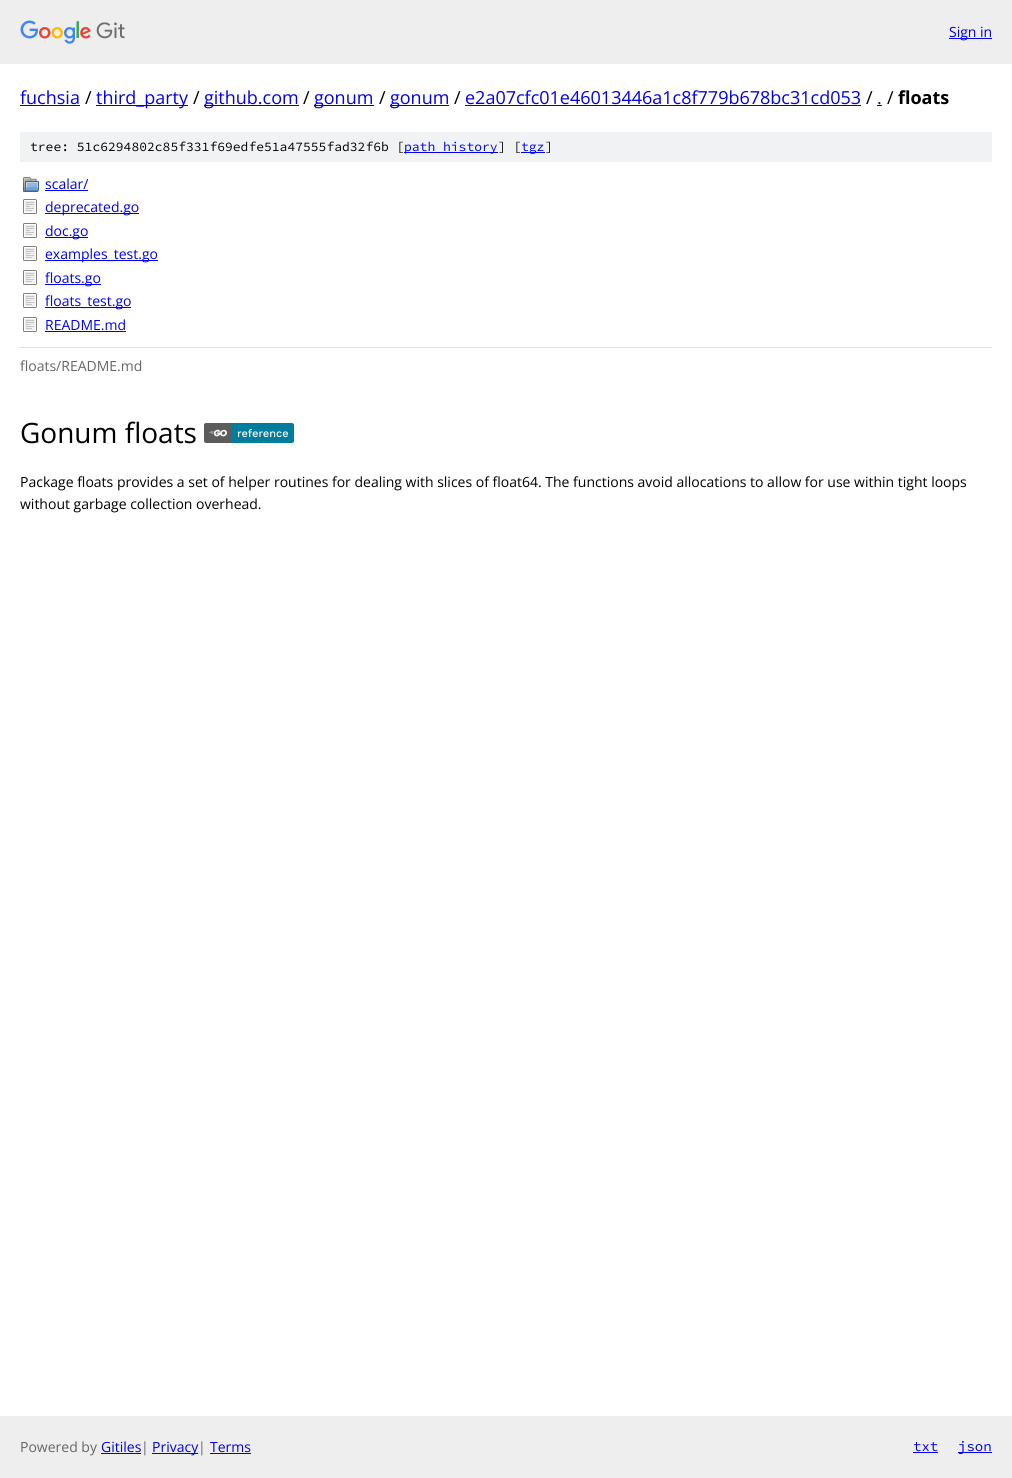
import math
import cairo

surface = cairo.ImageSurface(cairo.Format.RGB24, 1012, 1478)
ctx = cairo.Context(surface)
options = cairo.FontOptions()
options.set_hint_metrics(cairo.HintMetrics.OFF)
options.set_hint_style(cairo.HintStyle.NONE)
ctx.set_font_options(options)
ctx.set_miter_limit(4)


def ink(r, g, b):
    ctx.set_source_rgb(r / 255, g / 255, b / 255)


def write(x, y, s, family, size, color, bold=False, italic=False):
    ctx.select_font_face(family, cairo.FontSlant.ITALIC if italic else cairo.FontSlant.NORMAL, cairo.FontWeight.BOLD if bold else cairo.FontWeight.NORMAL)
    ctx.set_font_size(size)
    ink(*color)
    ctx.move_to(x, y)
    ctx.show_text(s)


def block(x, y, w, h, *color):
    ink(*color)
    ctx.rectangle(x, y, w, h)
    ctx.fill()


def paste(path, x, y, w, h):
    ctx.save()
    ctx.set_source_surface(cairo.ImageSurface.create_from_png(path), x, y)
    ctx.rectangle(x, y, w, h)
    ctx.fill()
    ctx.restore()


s1 = dict(family="Open Sans", size=14, color=(0, 0, 238))
s2 = dict(family="Open Sans", size=18, color=(0, 0, 238))
s3 = dict(family="Open Sans", size=18, color=(0, 0, 0))
s4 = dict(family="Open Sans", size=18, color=(0, 0, 0), bold=True)
s5 = dict(family="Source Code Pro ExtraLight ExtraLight", size=13, color=(0, 0, 0))
s6 = dict(family="Source Code Pro ExtraLight ExtraLight", size=13, color=(0, 0, 238))
s7 = dict(family="Open Sans", size=14, color=(102, 102, 102))
s8 = dict(family="Open Sans", size=28, color=(0, 0, 0))
s9 = dict(family="Open Sans", size=14, color=(0, 0, 0))
s10 = dict(family="Source Code Pro ExtraLight ExtraLight", size=14, color=(0, 0, 238))

ink(255, 255, 255)
ctx.paint()
block(0, 0, 1012, 64, 238, 238, 238)
paste("pic1.png", 20, 20, 105, 24)
block(949, 38, 43, 1, 0, 0, 238)
write(949, 37, "Sign in", **s1)
write(20, 104, "fuchsia", **s2)
block(20, 105, 60, 1, 0, 0, 238)
write(85, 104, "/", **s3)
block(96, 105, 92, 1, 0, 0, 238)
write(96, 104, "third_party", **s2)
write(193, 104, "/", **s3)
block(204, 105, 95, 1, 0, 0, 238)
write(204, 104, "github.com", **s2)
write(303, 104, "/", **s3)
block(314, 105, 60, 1, 0, 0, 238)
write(314, 104, "gonum", **s2)
write(379, 104, "/", **s3)
block(390, 105, 59, 1, 0, 0, 238)
write(390, 104, "gonum", **s2)
write(454, 104, "/", **s3)
write(465, 104, "e2a07cfc01e46013446a1c8f779b678bc31cd053", **s2)
block(465, 105, 396, 1, 0, 0, 238)
write(866, 104, "/", **s3)
write(877, 104, ".", **s2)
block(877, 105, 5, 1, 0, 0, 238)
write(887, 104, "/", **s3)
write(898, 104, "floats", **s4)
block(20, 132, 972, 30, 241, 242, 243)
write(30, 151, "tree: 51c6294802c85f331f69edfe51a47555fad32f6b [", **s5)
block(404, 152, 94, 1, 0, 0, 238)
write(404, 151, "path history", **s6)
write(498, 151, "] [", **s5)
block(521, 152, 24, 1, 0, 0, 238)
write(521, 151, "tgz", **s6)
write(545, 151, "]", **s5)
paste("pic2.png", 23, 177, 16, 15)
write(45, 189, "scalar/", **s1)
block(45, 190, 43, 1, 0, 0, 238)
paste("pic3.png", 23, 199, 14, 15)
block(45, 213, 94, 1, 0, 0, 238)
write(45, 212, "deprecated.go", **s1)
paste("pic3.png", 23, 223, 14, 15)
block(45, 237, 43, 1, 0, 0, 238)
write(45, 236, "doc.go", **s1)
paste("pic3.png", 23, 246, 14, 15)
block(45, 260, 113, 1, 0, 0, 238)
write(45, 259, "examples_test.go", **s1)
paste("pic3.png", 23, 270, 14, 15)
block(45, 284, 56, 1, 0, 0, 238)
write(45, 283, "floats.go", **s1)
paste("pic3.png", 23, 293, 14, 15)
block(45, 307, 86, 1, 0, 0, 238)
write(45, 306, "floats_test.go", **s1)
paste("pic3.png", 23, 317, 14, 15)
write(45, 330, "README.md", **s1)
block(45, 331, 81, 1, 0, 0, 238)
block(20, 347, 972, 1, 221, 221, 221)
write(20, 371, "floats/README.md", **s7)
write(20, 443, "Gonum floats", **s8)
paste("pic4.png", 204, 423, 90, 20)
write(20, 487, "Package floats provides a set of helper routines for dealing with slices of float64. The functions avoid allocations to allow for use within tight loops", **s9)
write(20, 509, "without garbage collection overhead.", **s9)
block(0, 1416, 1012, 62, 238, 238, 238)
write(20, 1452, "Powered by", **s7)
write(101, 1452, "Gitiles", **s1)
block(101, 1453, 40, 1, 0, 0, 238)
write(141, 1452, "|", **s7)
block(152, 1453, 46, 1, 0, 0, 238)
write(152, 1452, "Privacy", **s1)
write(198, 1452, "|", **s7)
write(210, 1452, "Terms", **s1)
block(210, 1453, 41, 1, 0, 0, 238)
write(913, 1451, "txt", **s10)
block(913, 1452, 25, 1, 0, 0, 238)
block(958, 1452, 34, 1, 0, 0, 238)
write(958, 1451, "json", **s10)
surface.write_to_png("screenshot.png")
